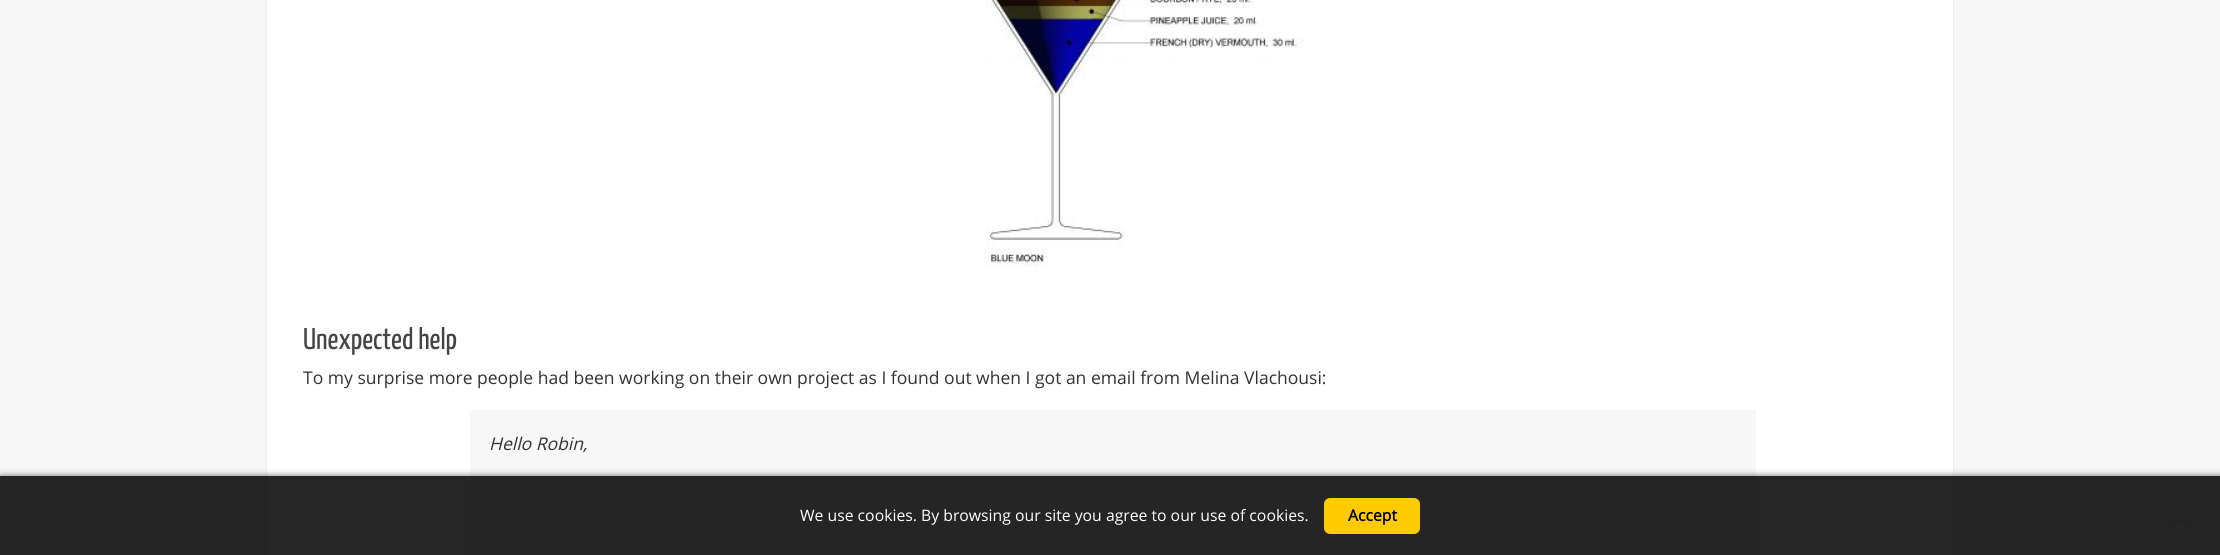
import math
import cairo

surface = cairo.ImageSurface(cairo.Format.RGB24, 2220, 555)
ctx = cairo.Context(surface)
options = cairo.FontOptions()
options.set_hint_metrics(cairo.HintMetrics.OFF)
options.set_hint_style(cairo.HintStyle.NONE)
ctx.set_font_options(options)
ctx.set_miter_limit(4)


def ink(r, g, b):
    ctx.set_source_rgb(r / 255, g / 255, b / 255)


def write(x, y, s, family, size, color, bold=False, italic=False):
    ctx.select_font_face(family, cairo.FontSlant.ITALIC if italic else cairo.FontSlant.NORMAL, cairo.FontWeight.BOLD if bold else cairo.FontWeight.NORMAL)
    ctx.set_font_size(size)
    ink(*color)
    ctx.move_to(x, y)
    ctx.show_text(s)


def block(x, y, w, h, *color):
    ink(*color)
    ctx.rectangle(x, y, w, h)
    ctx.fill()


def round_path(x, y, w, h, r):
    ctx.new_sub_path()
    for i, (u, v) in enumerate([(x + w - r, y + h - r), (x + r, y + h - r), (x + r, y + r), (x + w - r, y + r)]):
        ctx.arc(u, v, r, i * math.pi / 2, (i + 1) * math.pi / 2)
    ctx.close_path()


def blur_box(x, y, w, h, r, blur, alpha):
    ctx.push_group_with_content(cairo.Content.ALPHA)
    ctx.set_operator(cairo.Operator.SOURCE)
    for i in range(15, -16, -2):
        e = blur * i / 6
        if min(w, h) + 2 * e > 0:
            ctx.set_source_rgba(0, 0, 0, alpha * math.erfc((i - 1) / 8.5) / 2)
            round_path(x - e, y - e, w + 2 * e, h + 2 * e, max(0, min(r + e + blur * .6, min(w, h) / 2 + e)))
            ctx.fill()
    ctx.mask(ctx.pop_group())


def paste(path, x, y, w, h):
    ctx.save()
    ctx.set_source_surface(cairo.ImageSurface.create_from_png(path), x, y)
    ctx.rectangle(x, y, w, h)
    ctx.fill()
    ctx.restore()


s1 = dict(family="Yanone Kaffeesatz", size=30, color=(68, 68, 68))
s2 = dict(family="Open Sans", size=17.5, color=(51, 51, 51))
s3 = dict(family="Open Sans", size=17.5, color=(51, 51, 51), italic=True)
s4 = dict(family="Open Sans", size=15.75, color=(255, 255, 255))
s5 = dict(family="Open Sans", size=15.75, color=(0, 0, 0), bold=True)

ink(247, 247, 247)
ctx.paint()
ink(255, 255, 255)
ctx.rectangle(266.5, -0.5, 1687, 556)
ctx.fill_preserve()
ink(238, 238, 238)
ctx.set_line_width(1)
ctx.stroke()
paste("pic1.png", 985, 0, 320, 267)
write(303, 349, "Unexpected help", **s1)
write(303, 384, "To my surprise more people had been working on their own project as I found out when I got an email from Melina Vlachousi:", **s2)
block(470, 410, 1286, 145, 247, 247, 247)
write(489, 450, "Hello Robin,", **s3)
paste("pic2.png", 2168, 518, 27, 11)
ctx.save()
ctx.set_fill_rule(cairo.FillRule.EVEN_ODD)
ctx.new_path()
ctx.move_to(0, 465)
ctx.line_to(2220, 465)
ctx.line_to(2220, 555)
ctx.line_to(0, 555)
ctx.close_path()
ctx.move_to(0, 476)
ctx.line_to(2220, 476)
ctx.line_to(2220, 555)
ctx.line_to(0, 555)
ctx.close_path()
ctx.clip()
ink(0, 0, 0)
blur_box(1, 478, 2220, 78, 0, 4, 1)
ctx.restore()
ctx.set_source_rgba(0, 0, 0, 0.85)
ctx.rectangle(0, 476, 2220, 79)
ctx.fill()
write(800, 521, "We use cookies. By browsing our site you agree to our use of cookies.", **s4)
ink(255, 203, 0)
round_path(1324, 498, 96, 36, 6)
ctx.fill()
write(1348, 521, "Accept", **s5)
surface.write_to_png("screenshot.png")
